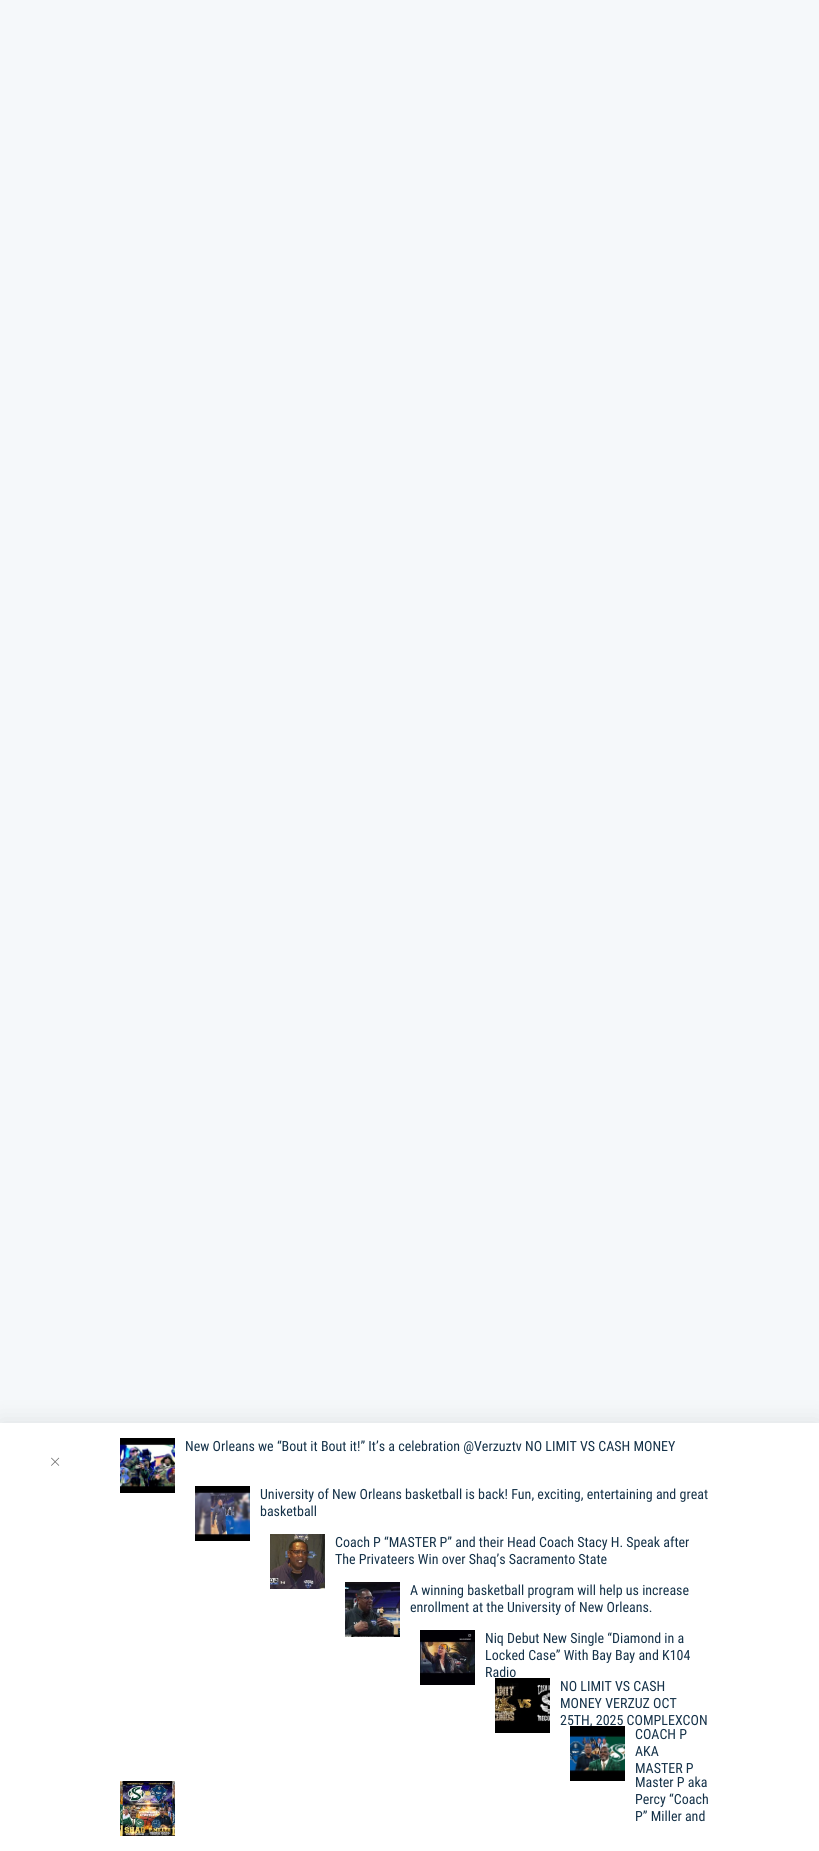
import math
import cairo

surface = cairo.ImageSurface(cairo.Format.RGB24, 819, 1851)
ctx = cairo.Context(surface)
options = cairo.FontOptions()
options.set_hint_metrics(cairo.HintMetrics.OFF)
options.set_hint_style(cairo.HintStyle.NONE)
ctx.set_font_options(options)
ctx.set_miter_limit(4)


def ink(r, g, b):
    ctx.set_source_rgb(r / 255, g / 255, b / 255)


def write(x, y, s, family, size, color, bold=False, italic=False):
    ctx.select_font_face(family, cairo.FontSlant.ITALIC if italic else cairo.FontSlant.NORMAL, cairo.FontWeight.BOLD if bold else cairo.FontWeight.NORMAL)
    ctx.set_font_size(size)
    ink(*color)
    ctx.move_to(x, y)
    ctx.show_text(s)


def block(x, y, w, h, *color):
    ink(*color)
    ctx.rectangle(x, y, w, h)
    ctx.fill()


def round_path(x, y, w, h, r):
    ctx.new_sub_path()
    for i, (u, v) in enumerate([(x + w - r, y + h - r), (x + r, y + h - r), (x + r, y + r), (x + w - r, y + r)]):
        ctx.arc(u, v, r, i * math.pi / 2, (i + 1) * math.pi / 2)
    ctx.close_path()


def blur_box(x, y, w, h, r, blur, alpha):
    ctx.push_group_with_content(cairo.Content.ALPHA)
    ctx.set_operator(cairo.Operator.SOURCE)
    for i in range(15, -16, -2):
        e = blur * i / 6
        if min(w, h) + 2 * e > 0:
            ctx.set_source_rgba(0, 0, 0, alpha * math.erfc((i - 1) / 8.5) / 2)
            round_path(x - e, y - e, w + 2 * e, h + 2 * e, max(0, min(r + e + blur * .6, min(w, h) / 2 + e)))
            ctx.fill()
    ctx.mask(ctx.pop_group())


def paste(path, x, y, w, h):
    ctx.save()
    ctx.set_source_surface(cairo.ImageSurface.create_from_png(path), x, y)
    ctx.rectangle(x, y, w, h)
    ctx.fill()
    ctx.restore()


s1 = dict(family="Roboto Condensed", size=14, color=(20, 49, 72))

ink(245, 248, 250)
ctx.paint()
ink(0, 0, 0)
blur_box(0, 1423, 819, 428, 0, 12.5, 0.1)
block(0, 1423, 819, 428, 255, 255, 255)
paste("pic1.png", 51, 1457, 9, 9)
paste("pic2.png", 120, 1438, 55, 55)
write(185, 1451, "New Orleans we “Bout it Bout it!” It’s a celebration @Verzuztv NO LIMIT VS CASH MONEY", **s1)
paste("pic3.png", 195, 1486, 55, 55)
write(260, 1499, "University of New Orleans basketball is back! Fun, exciting, entertaining and great", **s1)
write(260, 1516, "basketball", **s1)
paste("pic4.png", 270, 1534, 55, 55)
write(335, 1547, "Coach P “MASTER P” and their Head Coach Stacy H. Speak after", **s1)
write(335, 1564, "The Privateers Win over Shaq’s Sacramento State", **s1)
paste("pic5.png", 345, 1582, 55, 55)
write(410, 1595, "A winning basketball program will help us increase", **s1)
write(410, 1612, "enrollment at the University of New Orleans.", **s1)
paste("pic6.png", 420, 1630, 55, 55)
write(485, 1643, "Niq Debut New Single “Diamond in a", **s1)
write(485, 1660, "Locked Case” With Bay Bay and K104", **s1)
write(485, 1677, "Radio", **s1)
paste("pic7.png", 495, 1678, 55, 55)
write(560, 1691, "NO LIMIT VS CASH", **s1)
write(560, 1708, "MONEY VERZUZ OCT", **s1)
write(560, 1725, "25TH, 2025 COMPLEXCON", **s1)
paste("pic8.png", 570, 1726, 55, 55)
write(635, 1739, "COACH P", **s1)
write(635, 1756, "AKA", **s1)
write(635, 1773, "MASTER P", **s1)
paste("pic9.png", 120, 1781, 55, 55)
write(635, 1787, "Master P aka", **s1)
write(635, 1804, "Percy “Coach", **s1)
write(635, 1821, "P” Miller and", **s1)
surface.write_to_png("screenshot.png")
